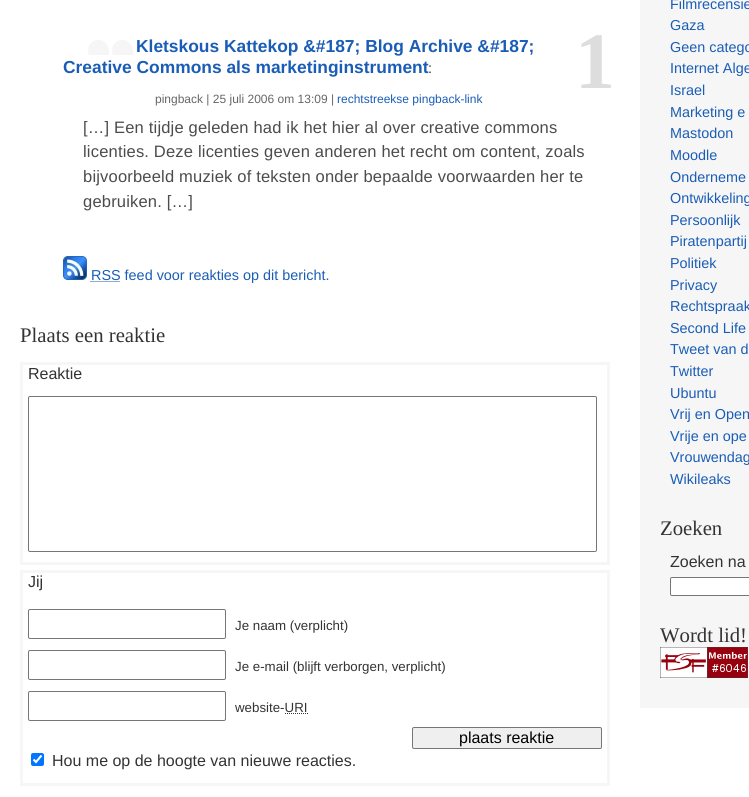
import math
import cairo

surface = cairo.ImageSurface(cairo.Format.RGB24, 749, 797)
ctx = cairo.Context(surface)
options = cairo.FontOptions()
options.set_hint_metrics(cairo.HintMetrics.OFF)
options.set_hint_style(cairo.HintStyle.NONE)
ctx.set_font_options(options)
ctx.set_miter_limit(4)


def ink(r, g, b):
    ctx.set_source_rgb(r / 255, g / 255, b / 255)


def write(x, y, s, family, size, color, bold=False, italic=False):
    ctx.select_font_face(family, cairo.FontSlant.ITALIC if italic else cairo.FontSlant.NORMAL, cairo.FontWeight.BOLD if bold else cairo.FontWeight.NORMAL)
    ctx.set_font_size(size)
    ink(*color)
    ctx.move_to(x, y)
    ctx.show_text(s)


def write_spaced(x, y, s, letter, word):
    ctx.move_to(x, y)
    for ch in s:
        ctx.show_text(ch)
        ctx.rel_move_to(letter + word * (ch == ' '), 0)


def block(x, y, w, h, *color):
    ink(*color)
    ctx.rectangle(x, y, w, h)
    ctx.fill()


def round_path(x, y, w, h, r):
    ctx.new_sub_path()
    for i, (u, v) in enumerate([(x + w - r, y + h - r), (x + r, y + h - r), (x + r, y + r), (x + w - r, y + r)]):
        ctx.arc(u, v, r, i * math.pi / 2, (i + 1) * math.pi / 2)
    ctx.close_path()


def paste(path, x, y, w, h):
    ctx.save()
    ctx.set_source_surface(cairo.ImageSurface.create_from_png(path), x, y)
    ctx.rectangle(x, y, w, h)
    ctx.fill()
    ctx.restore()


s1 = dict(family="Liberation Sans", size=17.4, color=(26, 93, 182), bold=True)
s2 = dict(family="Liberation Serif", size=80, color=(221, 221, 221), bold=True)
s3 = dict(family="Liberation Sans", size=14.4, color=(51, 51, 51))
s4 = dict(family="Liberation Sans", size=12, color=(102, 102, 102))
s5 = dict(family="Liberation Sans", size=12, color=(26, 93, 182))
s6 = dict(family="Liberation Sans", size=14.4, color=(26, 93, 182))
s7 = dict(family="Liberation Serif", size=20.75, color=(51, 51, 51))
s8 = dict(family="Liberation Sans", size=16, color=(51, 51, 51))
s9 = dict(family="Liberation Sans", size=13.3, color=(51, 51, 51))
s10 = dict(family="Liberation Sans", size=16, color=(0, 0, 0))

ink(255, 255, 255)
ctx.paint()
paste("pic1.png", 88, 40, 45, 15)
write(136, 52, "Kletskous Kattekop &#187; Blog Archive &#187;", **s1)
write(575, 88, "1", **s2)
write(63, 73, "Creative Commons als marketinginstrument", **s1)
write(428, 73, ":", **s3)
write(155, 103, "pingback | 25 juli 2006 om 13:09 |", **s4)
write(337, 103, "rechtstreekse pingback-link", **s5)
ctx.set_font_size(16.55)
ink(76, 76, 76)
write_spaced(83, 133, "[…] Een tijdje geleden had ik het hier al over creative commons", 0.17, 0)
write_spaced(83, 157, "licenties. Deze licenties geven anderen het recht om content, zoals", 0.17, 0)
write_spaced(83, 182, "bijvoorbeeld muziek of teksten onder bepaalde voorwaarden her te", 0.17, 0)
write_spaced(83, 207, "gebruiken. […]", 0.17, 0)
paste("pic2.png", 63, 256, 24, 24)
ctx.new_path()
ctx.move_to(90.5, 281.5)
ctx.line_to(120, 281.5)
ink(26, 93, 182)
ctx.set_line_width(1)
ctx.set_dash([1, 1])
ctx.stroke()
write(91, 280, "RSS feed voor reakties op dit bericht.", **s6)
write(20, 342, "Plaats een reaktie", **s7)
ctx.rectangle(21.5, 363.5, 587, 200)
ink(246, 246, 246)
ctx.set_line_width(3)
ctx.set_dash([])
ctx.stroke()
write(28, 379, "Reaktie", **s8)
round_path(28.5, 396.5, 568, 155, 1.5)
ink(118, 118, 118)
ctx.set_line_width(1)
ctx.stroke()
ctx.rectangle(21.5, 571.5, 587, 213)
ink(246, 246, 246)
ctx.set_line_width(3)
ctx.stroke()
write(28, 587, "Jij", **s8)
round_path(28.5, 609.5, 197, 29, 1.5)
ink(118, 118, 118)
ctx.set_line_width(1)
ctx.stroke()
write(235, 630, "Je naam (verplicht)", **s9)
round_path(28.5, 650.5, 197, 29, 1.5)
ink(118, 118, 118)
ctx.stroke()
write(235, 671, "Je e-mail (blijft verborgen, verplicht)", **s9)
round_path(28.5, 691.5, 197, 29, 1.5)
ink(118, 118, 118)
ctx.stroke()
write(235, 712, "website-URI", **s9)
ctx.new_path()
ctx.move_to(285, 713.5)
ctx.line_to(308, 713.5)
ctx.set_dash([1, 1])
ctx.stroke()
ink(239, 239, 239)
round_path(412.5, 727.5, 189, 21, 1.5)
ctx.fill_preserve()
ink(118, 118, 118)
ctx.set_dash([])
ctx.stroke()
write(459, 743, "plaats reaktie", **s10)
ink(0, 117, 255)
round_path(31, 753, 13, 13, 2)
ctx.fill()
ctx.new_path()
ctx.move_to(33.5, 759.5)
ctx.line_to(36, 762)
ctx.line_to(41.5, 755.5)
ink(255, 255, 255)
ctx.set_line_width(2.1)
ctx.stroke()
write(52, 766, "Hou me op de hoogte van nieuwe reacties.", **s8)
block(640, 0, 109, 708, 246, 246, 246)
write(670, 9, "Filmrecensie", **s6)
write(670, 30, "Gaza", **s6)
write(670, 52, "Geen catego", **s6)
write(670, 73, "Internet Alge", **s6)
write(670, 95, "Israel", **s6)
write(670, 117, "Marketing e", **s6)
write(670, 138, "Mastodon", **s6)
write(670, 160, "Moodle", **s6)
write(670, 182, "Onderneme", **s6)
write(670, 203, "Ontwikkeling", **s6)
write(670, 225, "Persoonlijk", **s6)
write(670, 246, "Piratenpartij", **s6)
write(670, 268, "Politiek", **s6)
write(670, 290, "Privacy", **s6)
write(670, 311, "Rechtspraak", **s6)
write(670, 333, "Second Life", **s6)
write(670, 354, "Tweet van d", **s6)
write(670, 376, "Twitter", **s6)
write(670, 398, "Ubuntu", **s6)
write(670, 419, "Vrij en Open", **s6)
write(670, 441, "Vrije en ope", **s6)
write(670, 462, "Vrouwendag", **s6)
write(670, 484, "Wikileaks", **s6)
write(660, 535, "Zoeken", **s7)
write(670, 567, "Zoeken na", **s8)
ink(255, 255, 255)
round_path(670.5, 577.5, 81, 18, 1.5)
ctx.fill_preserve()
ink(118, 118, 118)
ctx.set_line_width(1)
ctx.stroke()
write(660, 642, "Wordt lid!", **s7)
paste("pic3.png", 660, 647, 88, 31)
surface.write_to_png("screenshot.png")
